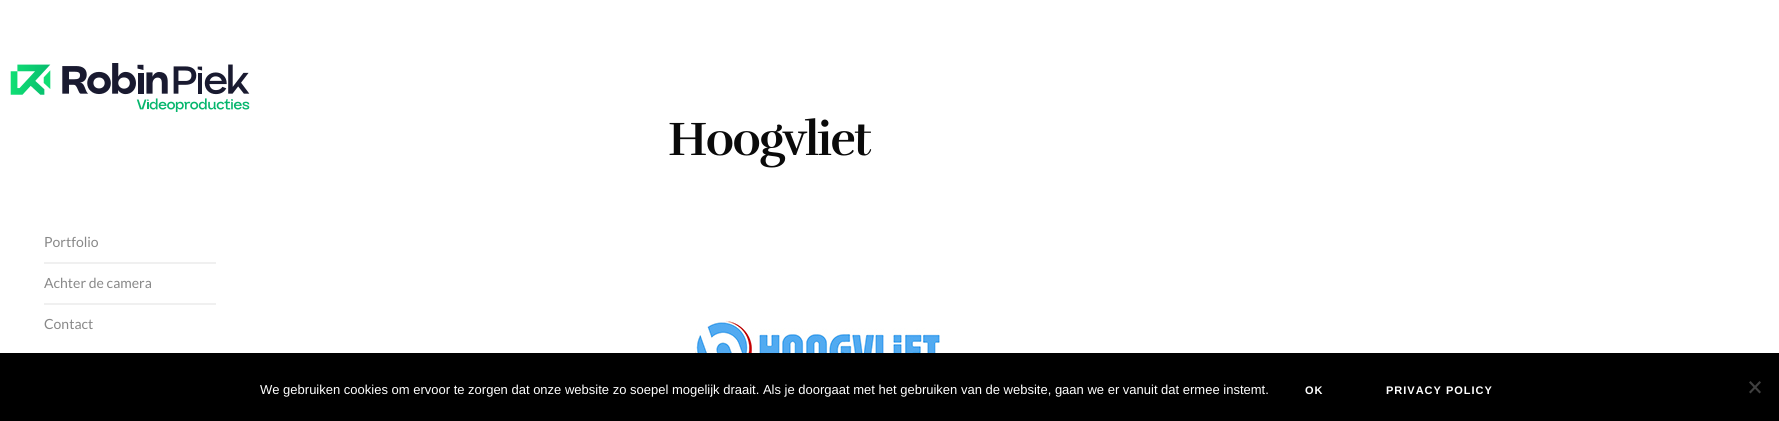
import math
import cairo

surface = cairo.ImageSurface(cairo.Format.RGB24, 1779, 421)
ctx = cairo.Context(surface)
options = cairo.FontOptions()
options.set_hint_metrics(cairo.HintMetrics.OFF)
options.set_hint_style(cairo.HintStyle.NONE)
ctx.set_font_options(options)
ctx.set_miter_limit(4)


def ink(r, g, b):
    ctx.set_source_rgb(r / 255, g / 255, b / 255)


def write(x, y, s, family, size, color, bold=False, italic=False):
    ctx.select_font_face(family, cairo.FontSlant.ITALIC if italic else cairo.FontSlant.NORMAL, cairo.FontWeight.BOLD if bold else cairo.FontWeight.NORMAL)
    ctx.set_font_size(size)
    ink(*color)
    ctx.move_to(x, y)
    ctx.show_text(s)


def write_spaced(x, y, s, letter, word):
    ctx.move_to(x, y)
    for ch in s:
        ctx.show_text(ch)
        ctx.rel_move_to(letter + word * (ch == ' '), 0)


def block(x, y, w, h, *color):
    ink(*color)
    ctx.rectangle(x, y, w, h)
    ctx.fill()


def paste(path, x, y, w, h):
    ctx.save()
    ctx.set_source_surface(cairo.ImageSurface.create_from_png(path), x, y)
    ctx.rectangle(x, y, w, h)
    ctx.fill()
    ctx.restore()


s1 = dict(family="Lato", size=14, color=(136, 136, 136))
s2 = dict(family="Liberation Sans", size=13, color=(255, 255, 255))

ink(255, 255, 255)
ctx.paint()
ctx.select_font_face("Rufina", cairo.FontSlant.NORMAL, cairo.FontWeight.BOLD)
ctx.set_font_size(48)
ink(10, 10, 10)
write_spaced(668, 155, "Hoogvliet", -2, 0)
paste("pic1.png", 695, 320, 245, 33)
paste("pic2.png", 10, 63, 240, 49)
block(44, 262, 172, 2, 240, 240, 240)
write(44, 247, "Portfolio", **s1)
block(44, 303, 172, 2, 240, 240, 240)
write(44, 288, "Achter de camera", **s1)
write(44, 329, "Contact", **s1)
block(0, 353, 1779, 68, 0, 0, 0)
write(260, 394, "We gebruiken cookies om ervoor te zorgen dat onze website zo soepel mogelijk draait. Als je doorgaat met het gebruiken van de website, gaan we er vanuit dat ermee instemt.", **s2)
ctx.select_font_face("Liberation Sans", cairo.FontSlant.NORMAL, cairo.FontWeight.BOLD)
ctx.set_font_size(11)
write_spaced(1305, 394, "OK", 1, 0)
write_spaced(1386, 394, "PRIVACY POLICY", 1, 0)
ink(64, 64, 64)
ctx.new_path()
ctx.move_to(1759.5, 381)
ctx.line_to(1761, 382.5)
ctx.line_to(1750.5, 393.5)
ctx.line_to(1749, 392)
ctx.close_path()
ctx.fill()
ctx.new_path()
ctx.move_to(1749, 382.5)
ctx.line_to(1750.5, 381)
ctx.line_to(1761, 392)
ctx.line_to(1759.5, 393.5)
ctx.close_path()
ctx.fill()
surface.write_to_png("screenshot.png")
